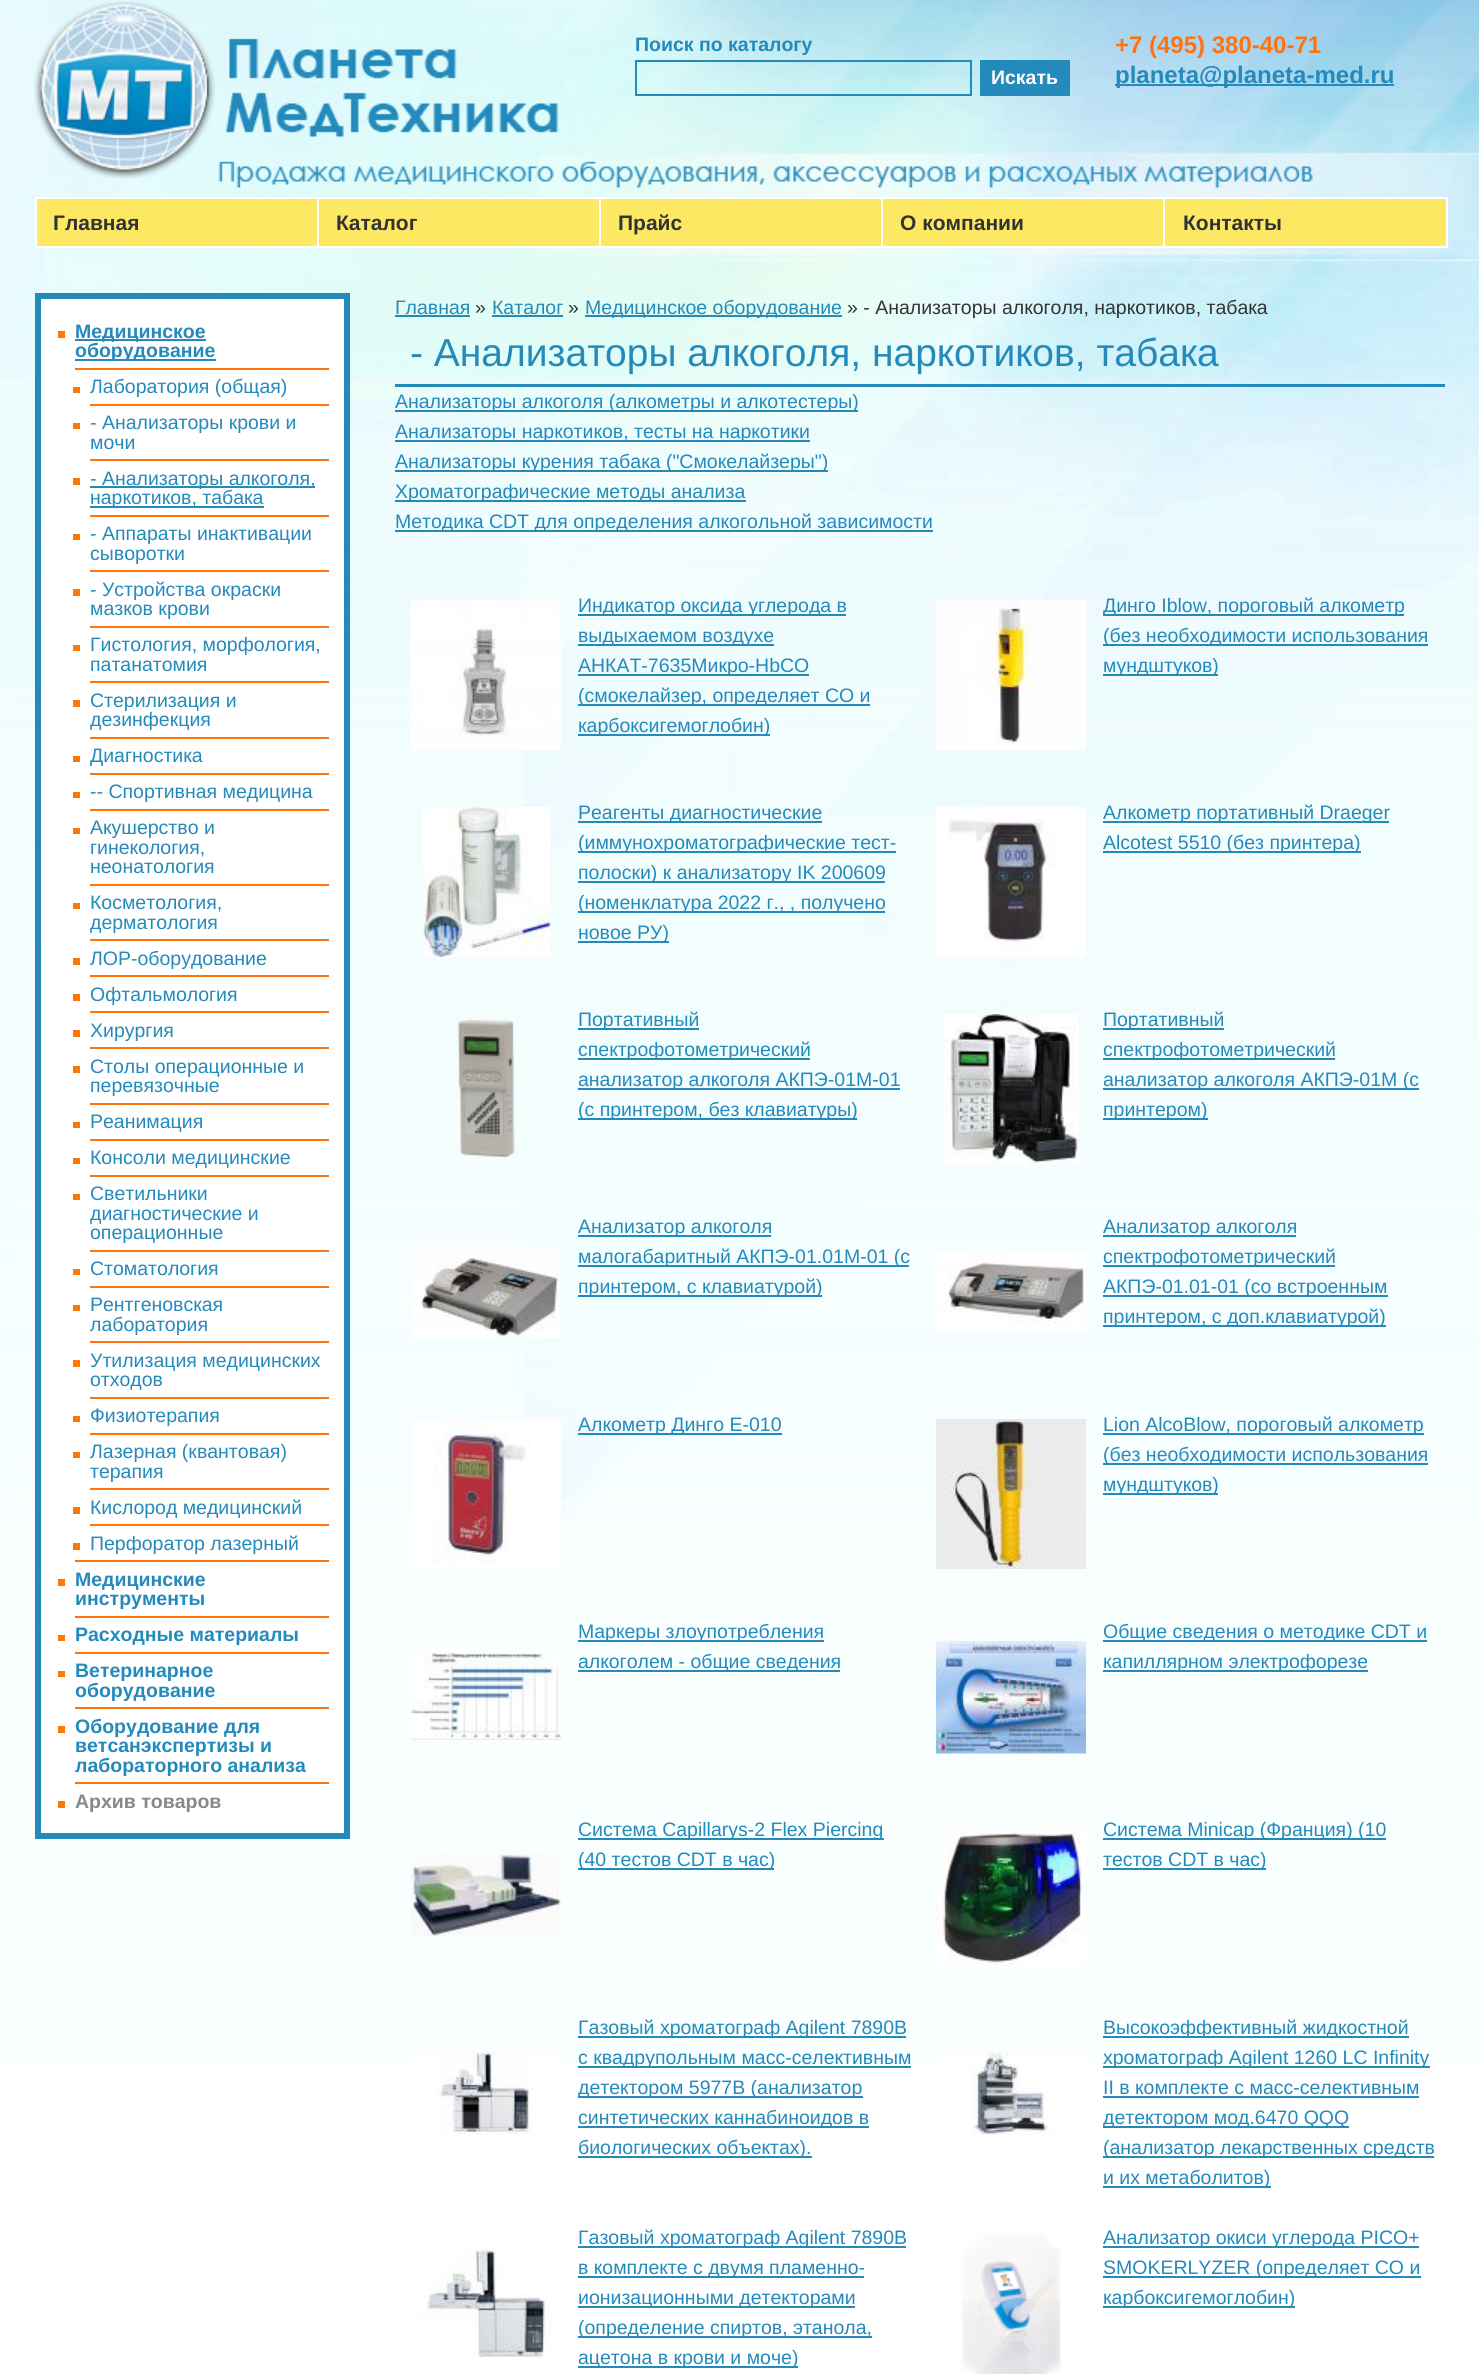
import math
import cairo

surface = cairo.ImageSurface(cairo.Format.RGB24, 1479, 2374)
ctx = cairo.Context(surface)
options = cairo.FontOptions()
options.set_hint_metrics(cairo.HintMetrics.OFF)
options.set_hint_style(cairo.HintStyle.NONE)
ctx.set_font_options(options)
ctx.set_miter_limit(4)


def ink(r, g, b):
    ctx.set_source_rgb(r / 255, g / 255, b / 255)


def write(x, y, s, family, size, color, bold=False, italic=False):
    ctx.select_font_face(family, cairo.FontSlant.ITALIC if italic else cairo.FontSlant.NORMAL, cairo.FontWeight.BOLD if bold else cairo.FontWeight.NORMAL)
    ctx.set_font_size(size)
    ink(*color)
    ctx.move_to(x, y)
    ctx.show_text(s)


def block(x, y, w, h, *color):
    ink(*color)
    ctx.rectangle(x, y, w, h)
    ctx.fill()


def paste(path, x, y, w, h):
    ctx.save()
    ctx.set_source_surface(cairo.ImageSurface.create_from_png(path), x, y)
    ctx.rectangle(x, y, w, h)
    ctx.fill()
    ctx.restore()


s1 = dict(family="Liberation Sans", size=19.5, color=(36, 138, 187), bold=True)
s2 = dict(family="Liberation Sans", size=19.5, color=(255, 255, 255), bold=True)
s3 = dict(family="Liberation Sans", size=24, color=(255, 115, 14), bold=True)
s4 = dict(family="Liberation Sans", size=24, color=(36, 138, 187), bold=True)
s5 = dict(family="Liberation Sans", size=21, color=(51, 51, 51), bold=True)
s6 = dict(family="Liberation Sans", size=19.5, color=(36, 138, 187))
s7 = dict(family="Liberation Sans", size=19.5, color=(136, 136, 136), bold=True)
s8 = dict(family="Liberation Sans", size=19.5, color=(51, 51, 51))
s9 = dict(family="Liberation Sans", size=39, color=(36, 138, 187))

ink(255, 255, 255)
ctx.paint()
paste("pic1.png", 0, 0, 1479, 2064)
paste("pic2.png", 218, 161, 1095, 27)
paste("pic3.png", 34, 1, 525, 178)
write(635, 51, "Поиск по каталогу", **s1)
ctx.rectangle(636, 61, 335, 34)
ctx.stroke()
block(980, 60, 90, 36, 36, 138, 187)
write(991, 84, "Искать", **s2)
write(1115, 53, "+7 (495) 380-40-71", **s3)
block(1115, 84, 279, 2, 36, 138, 187)
write(1115, 83, "planeta@planeta-med.ru", **s4)
block(37, 199, 280, 47, 252, 232, 99)
block(35, 197, 1128, 2, 255, 255, 255)
block(35, 246, 1128, 2, 255, 255, 255)
block(35, 197, 2, 51, 255, 255, 255)
write(53, 230, "Главная", **s5)
block(319, 199, 280, 47, 252, 232, 99)
block(317, 197, 2, 51, 255, 255, 255)
write(336, 230, "Каталог", **s5)
block(601, 199, 280, 47, 252, 232, 99)
block(599, 197, 2, 51, 255, 255, 255)
write(618, 230, "Прайс", **s5)
block(883, 199, 280, 47, 252, 232, 99)
block(881, 197, 2, 51, 255, 255, 255)
write(900, 230, "О компании", **s5)
ink(252, 232, 99)
ctx.rectangle(1164, 198, 283, 49)
ctx.fill_preserve()
ink(255, 255, 255)
ctx.stroke()
write(1183, 230, "Контакты", **s5)
ink(255, 255, 255)
ctx.rectangle(38, 296, 309, 1540)
ctx.fill_preserve()
ink(36, 138, 187)
ctx.set_line_width(6)
ctx.stroke()
block(58, 331, 7, 7, 255, 121, 0)
block(75, 339, 131, 2, 36, 138, 187)
write(75, 338, "Медицинское", **s1)
block(75, 359, 141, 2, 36, 138, 187)
write(75, 357, "оборудование", **s1)
block(75, 368, 254, 2, 255, 115, 14)
block(73, 387, 7, 6, 255, 121, 0)
write(90, 393, "Лаборатория (общая)", **s6)
block(90, 404, 239, 2, 255, 115, 14)
block(73, 423, 7, 6, 255, 121, 0)
write(90, 429, "- Анализаторы крови и", **s6)
write(90, 449, "мочи", **s6)
block(90, 459, 239, 2, 255, 115, 14)
block(73, 478, 7, 7, 255, 121, 0)
block(90, 486, 225, 2, 36, 138, 187)
write(90, 485, "- Анализаторы алкоголя,", **s6)
block(90, 506, 174, 2, 36, 138, 187)
write(90, 504, "наркотиков, табака", **s6)
block(90, 515, 239, 2, 255, 115, 14)
block(73, 534, 7, 6, 255, 121, 0)
write(90, 540, "- Аппараты инактивации", **s6)
write(90, 560, "сыворотки", **s6)
block(90, 570, 239, 2, 255, 115, 14)
block(73, 589, 7, 7, 255, 121, 0)
write(90, 596, "- Устройства окраски", **s6)
write(90, 615, "мазков крови", **s6)
block(90, 626, 239, 2, 255, 115, 14)
block(73, 645, 7, 6, 255, 121, 0)
write(90, 651, "Гистология, морфология,", **s6)
write(90, 671, "патанатомия", **s6)
block(90, 681, 239, 2, 255, 115, 14)
block(73, 700, 7, 7, 255, 121, 0)
write(90, 707, "Стерилизация и", **s6)
write(90, 726, "дезинфекция", **s6)
block(90, 737, 239, 2, 255, 115, 14)
block(73, 756, 7, 6, 255, 121, 0)
write(90, 762, "Диагностика", **s6)
block(90, 773, 239, 2, 255, 115, 14)
block(73, 792, 7, 6, 255, 121, 0)
write(90, 798, "-- Спортивная медицина", **s6)
block(90, 809, 239, 2, 255, 115, 14)
block(73, 828, 7, 6, 255, 121, 0)
write(90, 834, "Акушерство и", **s6)
write(90, 854, "гинекология,", **s6)
write(90, 873, "неонатология", **s6)
block(90, 884, 239, 2, 255, 115, 14)
block(73, 903, 7, 6, 255, 121, 0)
write(90, 909, "Косметология,", **s6)
write(90, 929, "дерматология", **s6)
block(90, 939, 239, 2, 255, 115, 14)
block(73, 958, 7, 7, 255, 121, 0)
write(90, 965, "ЛОР-оборудование", **s6)
block(90, 975, 239, 2, 255, 115, 14)
block(73, 994, 7, 7, 255, 121, 0)
write(90, 1001, "Офтальмология", **s6)
block(90, 1011, 239, 2, 255, 115, 14)
block(73, 1030, 7, 7, 255, 121, 0)
write(90, 1037, "Хирургия", **s6)
block(90, 1047, 239, 2, 255, 115, 14)
block(73, 1066, 7, 7, 255, 121, 0)
write(90, 1073, "Столы операционные и", **s6)
write(90, 1092, "перевязочные", **s6)
block(90, 1103, 239, 2, 255, 115, 14)
block(73, 1122, 7, 6, 255, 121, 0)
write(90, 1128, "Реанимация", **s6)
block(90, 1139, 239, 2, 255, 115, 14)
block(73, 1158, 7, 6, 255, 121, 0)
write(90, 1164, "Консоли медицинские", **s6)
block(90, 1175, 239, 2, 255, 115, 14)
block(73, 1194, 7, 6, 255, 121, 0)
write(90, 1200, "Светильники", **s6)
write(90, 1220, "диагностические и", **s6)
write(90, 1239, "операционные", **s6)
block(90, 1250, 239, 2, 255, 115, 14)
block(73, 1269, 7, 6, 255, 121, 0)
write(90, 1275, "Стоматология", **s6)
block(90, 1286, 239, 2, 255, 115, 14)
block(73, 1305, 7, 6, 255, 121, 0)
write(90, 1311, "Рентгеновская", **s6)
write(90, 1331, "лаборатория", **s6)
block(90, 1341, 239, 2, 255, 115, 14)
block(73, 1360, 7, 7, 255, 121, 0)
write(90, 1367, "Утилизация медицинских", **s6)
write(90, 1386, "отходов", **s6)
block(90, 1397, 239, 2, 255, 115, 14)
block(73, 1416, 7, 6, 255, 121, 0)
write(90, 1422, "Физиотерапия", **s6)
block(90, 1433, 239, 2, 255, 115, 14)
block(73, 1452, 7, 6, 255, 121, 0)
write(90, 1458, "Лазерная (квантовая)", **s6)
write(90, 1478, "терапия", **s6)
block(90, 1488, 239, 2, 255, 115, 14)
block(73, 1507, 7, 7, 255, 121, 0)
write(90, 1514, "Кислород медицинский", **s6)
block(90, 1524, 239, 2, 255, 115, 14)
block(73, 1543, 7, 7, 255, 121, 0)
write(90, 1550, "Перфоратор лазерный", **s6)
block(75, 1560, 254, 2, 255, 115, 14)
block(58, 1579, 7, 7, 255, 121, 0)
write(75, 1586, "Медицинские", **s1)
write(75, 1605, "инструменты", **s1)
block(75, 1616, 254, 2, 255, 115, 14)
block(58, 1635, 7, 6, 255, 121, 0)
write(75, 1641, "Расходные материалы", **s1)
block(75, 1652, 254, 2, 255, 115, 14)
block(58, 1671, 7, 6, 255, 121, 0)
write(75, 1677, "Ветеринарное", **s1)
write(75, 1697, "оборудование", **s1)
block(75, 1707, 254, 2, 255, 115, 14)
block(58, 1726, 7, 7, 255, 121, 0)
write(75, 1733, "Оборудование для", **s1)
write(75, 1752, "ветсанэкспертизы и", **s1)
write(75, 1772, "лабораторного анализа", **s1)
block(75, 1782, 254, 2, 255, 115, 14)
block(58, 1801, 7, 7, 255, 121, 0)
write(75, 1808, "Архив товаров", **s7)
write(395, 314, "Главная", **s6)
block(395, 315, 75, 2, 36, 138, 187)
write(475, 314, "»", **s8)
write(492, 314, "Каталог", **s6)
block(492, 315, 71, 2, 36, 138, 187)
write(568, 314, "»", **s8)
block(585, 315, 257, 2, 36, 138, 187)
write(585, 314, "Медицинское оборудование", **s6)
write(847, 314, "» - Анализаторы алкоголя, наркотиков, табака", **s8)
block(395, 384, 1050, 3, 36, 138, 187)
write(410, 366, "- Анализаторы алкоголя, наркотиков, табака", **s9)
block(395, 410, 463, 2, 36, 138, 187)
write(395, 408, "Анализаторы алкоголя (алкометры и алкотестеры)", **s6)
block(395, 440, 415, 2, 36, 138, 187)
write(395, 438, "Анализаторы наркотиков, тесты на наркотики", **s6)
block(395, 470, 433, 2, 36, 138, 187)
write(395, 468, "Анализаторы курения табака (\"Смокелайзеры\")", **s6)
block(395, 500, 351, 2, 36, 138, 187)
write(395, 498, "Хроматографические методы анализа", **s6)
block(395, 530, 538, 2, 36, 138, 187)
write(395, 528, "Методика CDT для определения алкогольной зависимости", **s6)
paste("pic4.png", 411, 600, 150, 150)
block(578, 614, 268, 2, 36, 138, 187)
write(578, 612, "Индикатор оксида углерода в", **s6)
block(578, 644, 196, 2, 36, 138, 187)
write(578, 642, "выдыхаемом воздухе", **s6)
block(578, 674, 231, 2, 36, 138, 187)
write(578, 672, "АНКАТ-7635Микро-HbCO", **s6)
block(578, 704, 292, 2, 36, 138, 187)
write(578, 702, "(смокелайзер, определяет СО и", **s6)
block(578, 734, 192, 2, 36, 138, 187)
write(578, 732, "карбоксигемоглобин)", **s6)
paste("pic5.png", 936, 600, 150, 150)
block(1103, 614, 301, 2, 36, 138, 187)
write(1103, 612, "Динго Iblow, пороговый алкометр", **s6)
block(1103, 644, 325, 2, 36, 138, 187)
write(1103, 642, "(без необходимости использования", **s6)
block(1103, 674, 115, 2, 36, 138, 187)
write(1103, 672, "мундштуков)", **s6)
paste("pic6.png", 423, 807, 128, 150)
block(578, 821, 244, 2, 36, 138, 187)
write(578, 819, "Реагенты диагностические", **s6)
block(578, 851, 318, 2, 36, 138, 187)
write(578, 849, "(иммунохроматографические тест-", **s6)
block(578, 881, 307, 2, 36, 138, 187)
write(578, 879, "полоски) к анализатору IK 200609", **s6)
block(578, 911, 307, 2, 36, 138, 187)
write(578, 909, "(номенклатура 2022 г., , получено", **s6)
block(578, 941, 91, 2, 36, 138, 187)
write(578, 939, "новое РУ)", **s6)
paste("pic7.png", 936, 807, 150, 150)
block(1103, 821, 286, 2, 36, 138, 187)
write(1103, 819, "Алкометр портативный Draeger", **s6)
block(1103, 851, 258, 2, 36, 138, 187)
write(1103, 849, "Alcotest 5510 (без принтера)", **s6)
paste("pic8.png", 457, 1019, 58, 139)
block(578, 1028, 121, 2, 36, 138, 187)
write(578, 1026, "Портативный", **s6)
block(578, 1058, 232, 2, 36, 138, 187)
write(578, 1056, "спектрофотометрический", **s6)
block(578, 1088, 322, 2, 36, 138, 187)
write(578, 1086, "анализатор алкоголя АКПЭ-01М-01", **s6)
block(578, 1118, 279, 2, 36, 138, 187)
write(578, 1116, "(с принтером, без клавиатуры)", **s6)
paste("pic9.png", 943, 1014, 136, 150)
block(1103, 1028, 121, 2, 36, 138, 187)
write(1103, 1026, "Портативный", **s6)
block(1103, 1058, 232, 2, 36, 138, 187)
write(1103, 1056, "спектрофотометрический", **s6)
block(1103, 1088, 316, 2, 36, 138, 187)
write(1103, 1086, "анализатор алкоголя АКПЭ-01М (с", **s6)
block(1103, 1118, 105, 2, 36, 138, 187)
write(1103, 1116, "принтером)", **s6)
paste("pic10.png", 411, 1246, 150, 92)
block(578, 1235, 193, 2, 36, 138, 187)
write(578, 1233, "Анализатор алкоголя", **s6)
block(578, 1265, 331, 2, 36, 138, 187)
write(578, 1263, "малогабаритный АКПЭ-01.01М-01 (с", **s6)
block(578, 1295, 244, 2, 36, 138, 187)
write(578, 1293, "принтером, с клавиатурой)", **s6)
paste("pic11.png", 936, 1252, 150, 79)
block(1103, 1235, 193, 2, 36, 138, 187)
write(1103, 1233, "Анализатор алкоголя", **s6)
block(1103, 1265, 232, 2, 36, 138, 187)
write(1103, 1263, "спектрофотометрический", **s6)
block(1103, 1295, 285, 2, 36, 138, 187)
write(1103, 1293, "АКПЭ-01.01-01 (со встроенным", **s6)
block(1103, 1325, 283, 2, 36, 138, 187)
write(1103, 1323, "принтером, с доп.клавиатурой)", **s6)
paste("pic12.png", 411, 1419, 150, 150)
block(578, 1433, 204, 2, 36, 138, 187)
write(578, 1431, "Алкометр Динго Е-010", **s6)
paste("pic13.png", 936, 1419, 150, 150)
block(1103, 1433, 321, 2, 36, 138, 187)
write(1103, 1431, "Lion AlcoBlow, пороговый алкометр", **s6)
block(1103, 1463, 325, 2, 36, 138, 187)
write(1103, 1461, "(без необходимости использования", **s6)
block(1103, 1493, 115, 2, 36, 138, 187)
write(1103, 1491, "мундштуков)", **s6)
block(578, 1640, 246, 2, 36, 138, 187)
write(578, 1638, "Маркеры злоупотребления", **s6)
block(578, 1670, 262, 2, 36, 138, 187)
write(578, 1668, "алкоголем - общие сведения", **s6)
paste("pic14.png", 411, 1653, 150, 87)
paste("pic15.png", 936, 1641, 150, 113)
block(1103, 1640, 324, 2, 36, 138, 187)
write(1103, 1638, "Общие сведения о методике CDT и", **s6)
block(1103, 1670, 265, 2, 36, 138, 187)
write(1103, 1668, "капиллярном электрофорезе", **s6)
block(578, 1838, 306, 2, 36, 138, 187)
write(578, 1836, "Система Capillarys-2 Flex Piercing", **s6)
block(578, 1868, 196, 2, 36, 138, 187)
write(578, 1866, "(40 тестов CDT в час)", **s6)
paste("pic16.png", 411, 1854, 150, 83)
paste("pic17.png", 936, 1825, 150, 140)
block(1103, 1838, 283, 2, 36, 138, 187)
write(1103, 1836, "Система Minicap (Франция) (10", **s6)
block(1103, 1868, 163, 2, 36, 138, 187)
write(1103, 1866, "тестов CDT в час)", **s6)
paste("pic18.png", 411, 2052, 150, 83)
block(578, 2036, 328, 2, 36, 138, 187)
write(578, 2034, "Газовый хроматограф Agilent 7890B", **s6)
block(578, 2066, 333, 2, 36, 138, 187)
write(578, 2064, "с квадрупольным масс-селективным", **s6)
block(578, 2096, 285, 2, 36, 138, 187)
write(578, 2094, "детектором 5977B (анализатор", **s6)
block(578, 2126, 291, 2, 36, 138, 187)
write(578, 2124, "синтетических каннабиноидов в", **s6)
block(578, 2156, 234, 2, 36, 138, 187)
write(578, 2154, "биологических объектах).", **s6)
paste("pic19.png", 936, 2052, 150, 83)
block(1103, 2036, 306, 2, 36, 138, 187)
write(1103, 2034, "Высокоэффективный жидкостной", **s6)
block(1103, 2066, 327, 2, 36, 138, 187)
write(1103, 2064, "хроматограф Agilent 1260 LC Infinity", **s6)
write(1103, 2094, "II в комплекте с масс-селективным", **s6)
block(1103, 2096, 316, 2, 36, 138, 187)
block(1103, 2126, 246, 2, 36, 138, 187)
write(1103, 2124, "детектором мод.6470 QQQ", **s6)
block(1103, 2156, 331, 2, 36, 138, 187)
write(1103, 2154, "(анализатор лекарственных средств", **s6)
block(1103, 2186, 168, 2, 36, 138, 187)
write(1103, 2184, "и их метаболитов)", **s6)
paste("pic20.png", 411, 2247, 144, 111)
block(578, 2246, 328, 2, 36, 138, 187)
write(578, 2244, "Газовый хроматограф Agilent 7890B", **s6)
block(578, 2276, 286, 2, 36, 138, 187)
write(578, 2274, "в комплекте с двумя пламенно-", **s6)
block(578, 2306, 277, 2, 36, 138, 187)
write(578, 2304, "ионизационными детекторами", **s6)
block(578, 2336, 294, 2, 36, 138, 187)
write(578, 2334, "(определение спиртов, этанола,", **s6)
block(578, 2366, 220, 2, 36, 138, 187)
write(578, 2364, "ацетона в крови и моче)", **s6)
paste("pic21.png", 961, 2232, 100, 142)
block(1103, 2246, 316, 2, 36, 138, 187)
write(1103, 2244, "Анализатор окиси углерода PICO+", **s6)
block(1103, 2276, 318, 2, 36, 138, 187)
write(1103, 2274, "SMOKERLYZER (определяет СО и", **s6)
block(1103, 2306, 192, 2, 36, 138, 187)
write(1103, 2304, "карбоксигемоглобин)", **s6)
surface.write_to_png("screenshot.png")
